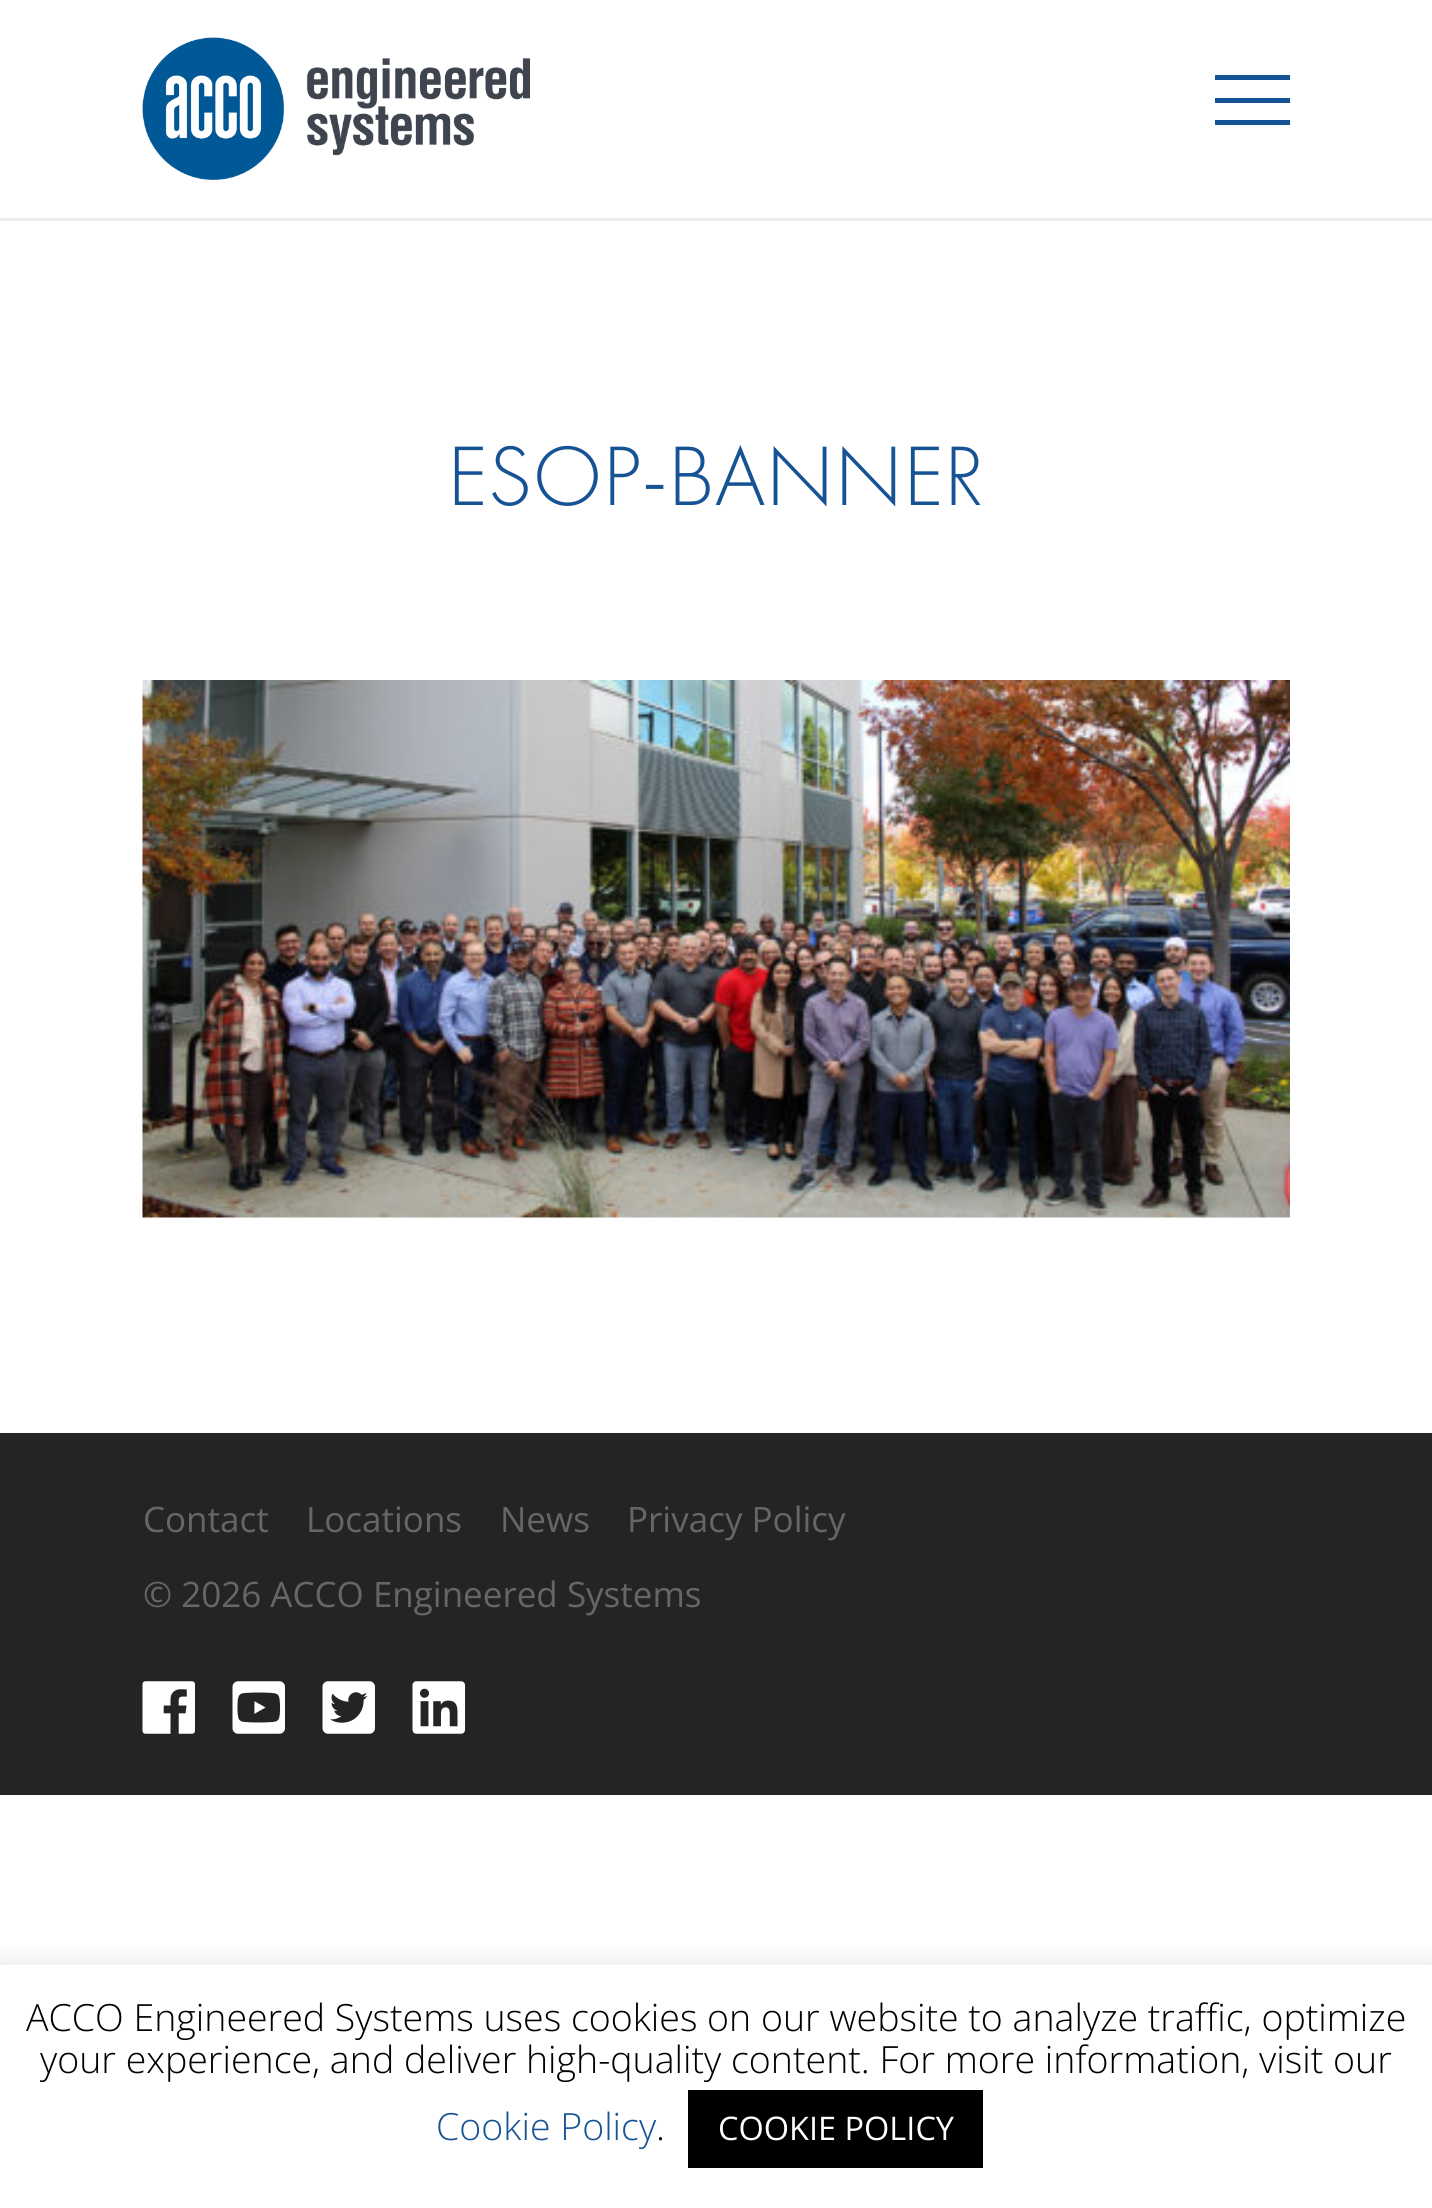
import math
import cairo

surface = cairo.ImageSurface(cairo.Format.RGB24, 1432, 2208)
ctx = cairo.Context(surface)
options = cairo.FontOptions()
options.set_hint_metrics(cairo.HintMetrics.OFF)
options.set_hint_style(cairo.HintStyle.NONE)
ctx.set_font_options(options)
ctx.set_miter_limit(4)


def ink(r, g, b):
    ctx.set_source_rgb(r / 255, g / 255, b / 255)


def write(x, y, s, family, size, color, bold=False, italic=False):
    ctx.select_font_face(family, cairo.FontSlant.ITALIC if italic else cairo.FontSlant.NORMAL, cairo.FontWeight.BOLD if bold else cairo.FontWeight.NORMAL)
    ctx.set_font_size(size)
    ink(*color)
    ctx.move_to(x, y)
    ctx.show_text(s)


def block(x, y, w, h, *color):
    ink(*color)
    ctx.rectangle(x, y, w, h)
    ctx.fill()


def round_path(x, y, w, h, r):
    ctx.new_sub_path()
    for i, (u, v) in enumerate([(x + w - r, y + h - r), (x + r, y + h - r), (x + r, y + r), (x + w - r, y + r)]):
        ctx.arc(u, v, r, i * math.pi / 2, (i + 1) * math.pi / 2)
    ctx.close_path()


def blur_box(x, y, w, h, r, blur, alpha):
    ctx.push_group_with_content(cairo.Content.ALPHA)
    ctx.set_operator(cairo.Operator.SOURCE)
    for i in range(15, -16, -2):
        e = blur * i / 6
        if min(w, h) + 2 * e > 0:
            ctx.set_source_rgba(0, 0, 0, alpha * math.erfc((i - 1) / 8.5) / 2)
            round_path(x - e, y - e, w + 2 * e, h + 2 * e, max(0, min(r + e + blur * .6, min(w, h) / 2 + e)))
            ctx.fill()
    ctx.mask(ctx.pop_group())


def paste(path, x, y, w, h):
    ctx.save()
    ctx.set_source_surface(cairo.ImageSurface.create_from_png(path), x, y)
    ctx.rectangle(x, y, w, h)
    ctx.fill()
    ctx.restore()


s1 = dict(family="Futura PT Light", size=87.5, color=(22, 83, 149))
s2 = dict(family="Open Sans", size=35, color=(102, 102, 102))
s3 = dict(family="Open Sans Light", size=37.5, color=(0, 0, 0))
s4 = dict(family="Open Sans Light", size=37.5, color=(22, 83, 149))
s5 = dict(family="Open Sans", size=32.5, color=(255, 255, 255))

ink(255, 255, 255)
ctx.paint()
block(0, 218, 1432, 3, 238, 238, 238)
paste("pic1.png", 142, 37, 388, 143)
block(1215, 98, 75, 5, 22, 83, 149)
block(1215, 75, 75, 5, 22, 83, 149)
block(1215, 120, 75, 5, 22, 83, 149)
write(447, 505, "ESOP-BANNER", **s1)
paste("pic2.png", 142, 680, 1148, 538)
block(0, 1433, 1432, 362, 36, 36, 36)
write(143, 1532, "Contact", **s2)
write(306, 1532, "Locations", **s2)
write(500, 1532, "News", **s2)
write(627, 1532, "Privacy Policy", **s2)
write(143, 1607, "© 2026 ACCO Engineered Systems", **s2)
paste("pic3.png", 142, 1681, 53, 53)
paste("pic4.png", 232, 1681, 53, 53)
paste("pic5.png", 322, 1681, 53, 53)
paste("pic6.png", 412, 1681, 53, 53)
ctx.save()
ctx.rectangle(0, 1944, 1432, 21)
ctx.clip()
ink(172, 171, 171)
blur_box(0, 1963, 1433, 245, 0, 12.5, 0.3)
ctx.restore()
write(26, 2031, "ACCO Engineered Systems uses cookies on our website to analyze traffic, optimize", **s3)
write(40, 2073, "your experience, and deliver high-quality content. For more information, visit our", **s3)
write(436, 2140, "Cookie Policy", **s4)
write(656, 2140, ".", **s3)
block(688, 2090, 295, 78, 0, 0, 0)
write(718, 2140, "COOKIE POLICY", **s5)
surface.write_to_png("screenshot.png")
